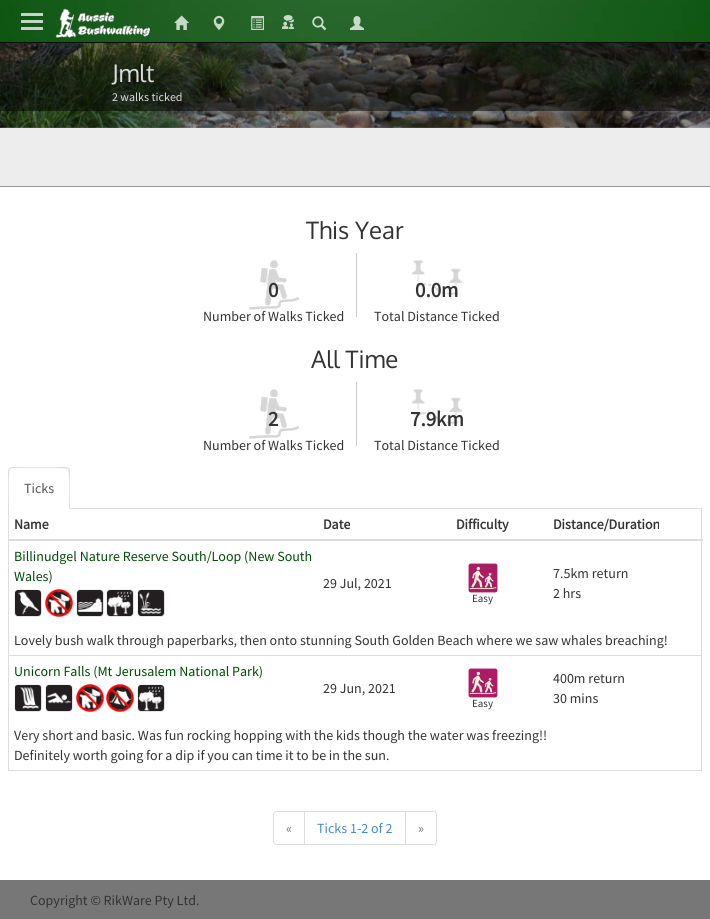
import math
import cairo

surface = cairo.ImageSurface(cairo.Format.RGB24, 710, 919)
ctx = cairo.Context(surface)
options = cairo.FontOptions()
options.set_hint_metrics(cairo.HintMetrics.OFF)
options.set_hint_style(cairo.HintStyle.NONE)
ctx.set_font_options(options)
ctx.set_miter_limit(4)


def ink(r, g, b):
    ctx.set_source_rgb(r / 255, g / 255, b / 255)


def write(x, y, s, family, size, color, bold=False, italic=False):
    ctx.select_font_face(family, cairo.FontSlant.ITALIC if italic else cairo.FontSlant.NORMAL, cairo.FontWeight.BOLD if bold else cairo.FontWeight.NORMAL)
    ctx.set_font_size(size)
    ink(*color)
    ctx.move_to(x, y)
    ctx.show_text(s)


def block(x, y, w, h, *color):
    ink(*color)
    ctx.rectangle(x, y, w, h)
    ctx.fill()


def paste(path, x, y, w, h):
    ctx.save()
    ctx.set_source_surface(cairo.ImageSurface.create_from_png(path), x, y)
    ctx.rectangle(x, y, w, h)
    ctx.fill()
    ctx.restore()


s1 = dict(family="Oxygen", size=24, color=(221, 221, 221))
s2 = dict(family="Source Sans Pro", size=12, color=(221, 221, 221))
s3 = dict(family="Oxygen", size=24, color=(51, 51, 51))
s4 = dict(family="Source Sans Pro", size=21, color=(51, 51, 51), bold=True)
s5 = dict(family="Source Sans Pro", size=14, color=(51, 51, 51))
s6 = dict(family="Source Sans Pro", size=14, color=(85, 85, 85))
s7 = dict(family="Source Sans Pro", size=14, color=(51, 51, 51), bold=True)
s8 = dict(family="Source Sans Pro", size=14, color=(0, 76, 5))
s9 = dict(family="Source Sans Pro", size=11, color=(51, 51, 51))
s10 = dict(family="Source Sans Pro", size=14, color=(119, 119, 119))
s11 = dict(family="Source Sans Pro", size=14, color=(66, 139, 202))

ink(255, 255, 255)
ctx.paint()
block(0, 42, 710, 1, 8, 8, 8)
paste("pic1.png", 0, 0, 710, 42)
paste("pic2.png", 21, 13, 22, 17)
paste("pic3.png", 55, 8, 95, 30)
paste("pic4.png", 174, 15, 15, 15)
paste("pic5.png", 213, 15, 12, 15)
paste("pic6.png", 251, 16, 13, 14)
paste("pic7.png", 282, 15, 12, 14)
paste("pic8.png", 312, 16, 15, 15)
paste("pic9.png", 350, 16, 14, 14)
paste("pic10.png", 0, 43, 710, 85)
ctx.set_source_rgba(0, 0, 0, 0.5)
ctx.rectangle(0, 43, 710, 68)
ctx.fill()
write(112, 82, "Jmlt", **s1)
write(112, 101, "2 walks ticked", **s2)
block(0, 128, 710, 58, 238, 237, 237)
block(0, 186, 710, 1, 153, 153, 153)
write(306, 239, "This Year", **s3)
paste("pic11.png", 249, 260, 50, 50)
write(268, 297, "0", **s4)
write(203, 321, "Number of Walks Ticked", **s5)
paste("pic12.png", 412, 260, 50, 36)
block(356, 253, 1, 64, 204, 204, 204)
write(415, 297, "0.0m", **s4)
write(374, 321, "Total Distance Ticked", **s5)
write(311, 368, "All Time", **s3)
paste("pic11.png", 249, 389, 50, 50)
write(268, 426, "2", **s4)
write(203, 450, "Number of Walks Ticked", **s5)
paste("pic12.png", 412, 389, 50, 36)
block(356, 382, 1, 64, 204, 204, 204)
write(410, 426, "7.9km", **s4)
write(374, 450, "Total Distance Ticked", **s5)
block(70, 508, 632, 1, 221, 221, 221)
ctx.new_path()
ctx.move_to(12, 467)
ctx.line_to(9, 468)
ctx.line_to(10, 469)
ctx.line_to(12, 468)
ctx.curve_to(17, 468, 66, 467, 68, 469)
ctx.line_to(69, 468)
ctx.line_to(66, 467)
ctx.close_path()
ctx.fill()
ctx.new_path()
ctx.move_to(70, 509)
ctx.line_to(70, 471)
ctx.curve_to(70, 470, 70, 469, 69, 468)
ctx.line_to(68, 469)
ctx.curve_to(70, 471, 69, 503, 69, 508)
ctx.close_path()
ctx.move_to(8, 509)
ctx.line_to(9, 508)
ctx.curve_to(9, 503, 8, 471, 10, 469)
ctx.line_to(9, 468)
ctx.line_to(8, 471)
ctx.close_path()
ctx.fill()
write(24, 493, "Ticks", **s6)
block(701, 509, 1, 262, 221, 221, 221)
block(8, 770, 694, 1, 221, 221, 221)
block(8, 509, 1, 262, 221, 221, 221)
write(14, 529, "Name", **s7)
write(323, 529, "Date", **s7)
write(456, 529, "Difficulty", **s7)
write(553, 529, "Distance/Duration", **s7)
block(8, 539, 695, 2, 221, 221, 221)
write(14, 561, "Billinudgel Nature Reserve South/Loop (New South", **s8)
write(14, 581, "Wales)", **s8)
paste("pic13.png", 14, 589, 28, 28)
paste("pic14.png", 47, 591, 24, 24)
paste("pic15.png", 45, 589, 28, 28)
paste("pic16.png", 76, 589, 28, 28)
paste("pic17.png", 106, 589, 28, 28)
paste("pic18.png", 137, 589, 28, 28)
write(323, 588, "29 Jul, 2021", **s5)
write(553, 578, "7.5km return", **s5)
write(553, 598, "2 hrs", **s5)
paste("pic19.png", 468, 563, 30, 30)
write(472, 602, "Easy", **s9)
write(14, 645, "Lovely bush walk through paperbarks, then onto stunning South Golden Beach where we saw whales breaching!", **s5)
block(8, 655, 694, 1, 221, 221, 221)
write(14, 676, "Unicorn Falls (Mt Jerusalem National Park)", **s8)
paste("pic20.png", 14, 684, 28, 28)
paste("pic21.png", 45, 684, 28, 28)
paste("pic14.png", 78, 686, 24, 24)
paste("pic15.png", 76, 684, 28, 28)
paste("pic22.png", 108, 686, 24, 24)
paste("pic23.png", 106, 684, 28, 28)
paste("pic17.png", 137, 684, 28, 28)
write(323, 693, "29 Jun, 2021", **s5)
write(553, 683, "400m return", **s5)
write(553, 703, "30 mins", **s5)
paste("pic19.png", 468, 668, 30, 30)
write(472, 707, "Easy", **s9)
write(14, 740, "Very short and basic. Was fun rocking hopping with the kids though the water was freezing!!", **s5)
write(14, 760, "Definitely worth going for a dip if you can time it to be in the sun.", **s5)
ctx.new_path()
ctx.move_to(277, 811.5)
ctx.line_to(304.5, 811.5)
ctx.line_to(304.5, 844.5)
ctx.line_to(277, 844.5)
ctx.curve_to(275, 844.5, 273.5, 843, 273.5, 841)
ctx.line_to(273.5, 815)
ctx.curve_to(273.5, 813, 275, 811.5, 277, 811.5)
ctx.close_path()
ink(221, 221, 221)
ctx.set_line_width(1)
ctx.stroke()
write(286, 833, "«", **s10)
ctx.rectangle(304.5, 811.5, 101, 33)
ink(221, 221, 221)
ctx.stroke()
write(317, 833, "Ticks 1-2 of 2", **s11)
ink(255, 255, 255)
ctx.new_path()
ctx.move_to(405.5, 811.5)
ctx.line_to(433, 811.5)
ctx.curve_to(435, 811.5, 436.5, 813, 436.5, 815)
ctx.line_to(436.5, 841)
ctx.curve_to(436.5, 843, 435, 844.5, 433, 844.5)
ctx.line_to(405.5, 844.5)
ctx.close_path()
ctx.fill_preserve()
ink(221, 221, 221)
ctx.stroke()
write(418, 833, "»", **s10)
block(0, 880, 710, 39, 119, 119, 119)
write(30, 905, "Copyright © RikWare Pty Ltd.", **s5)
surface.write_to_png("screenshot.png")
